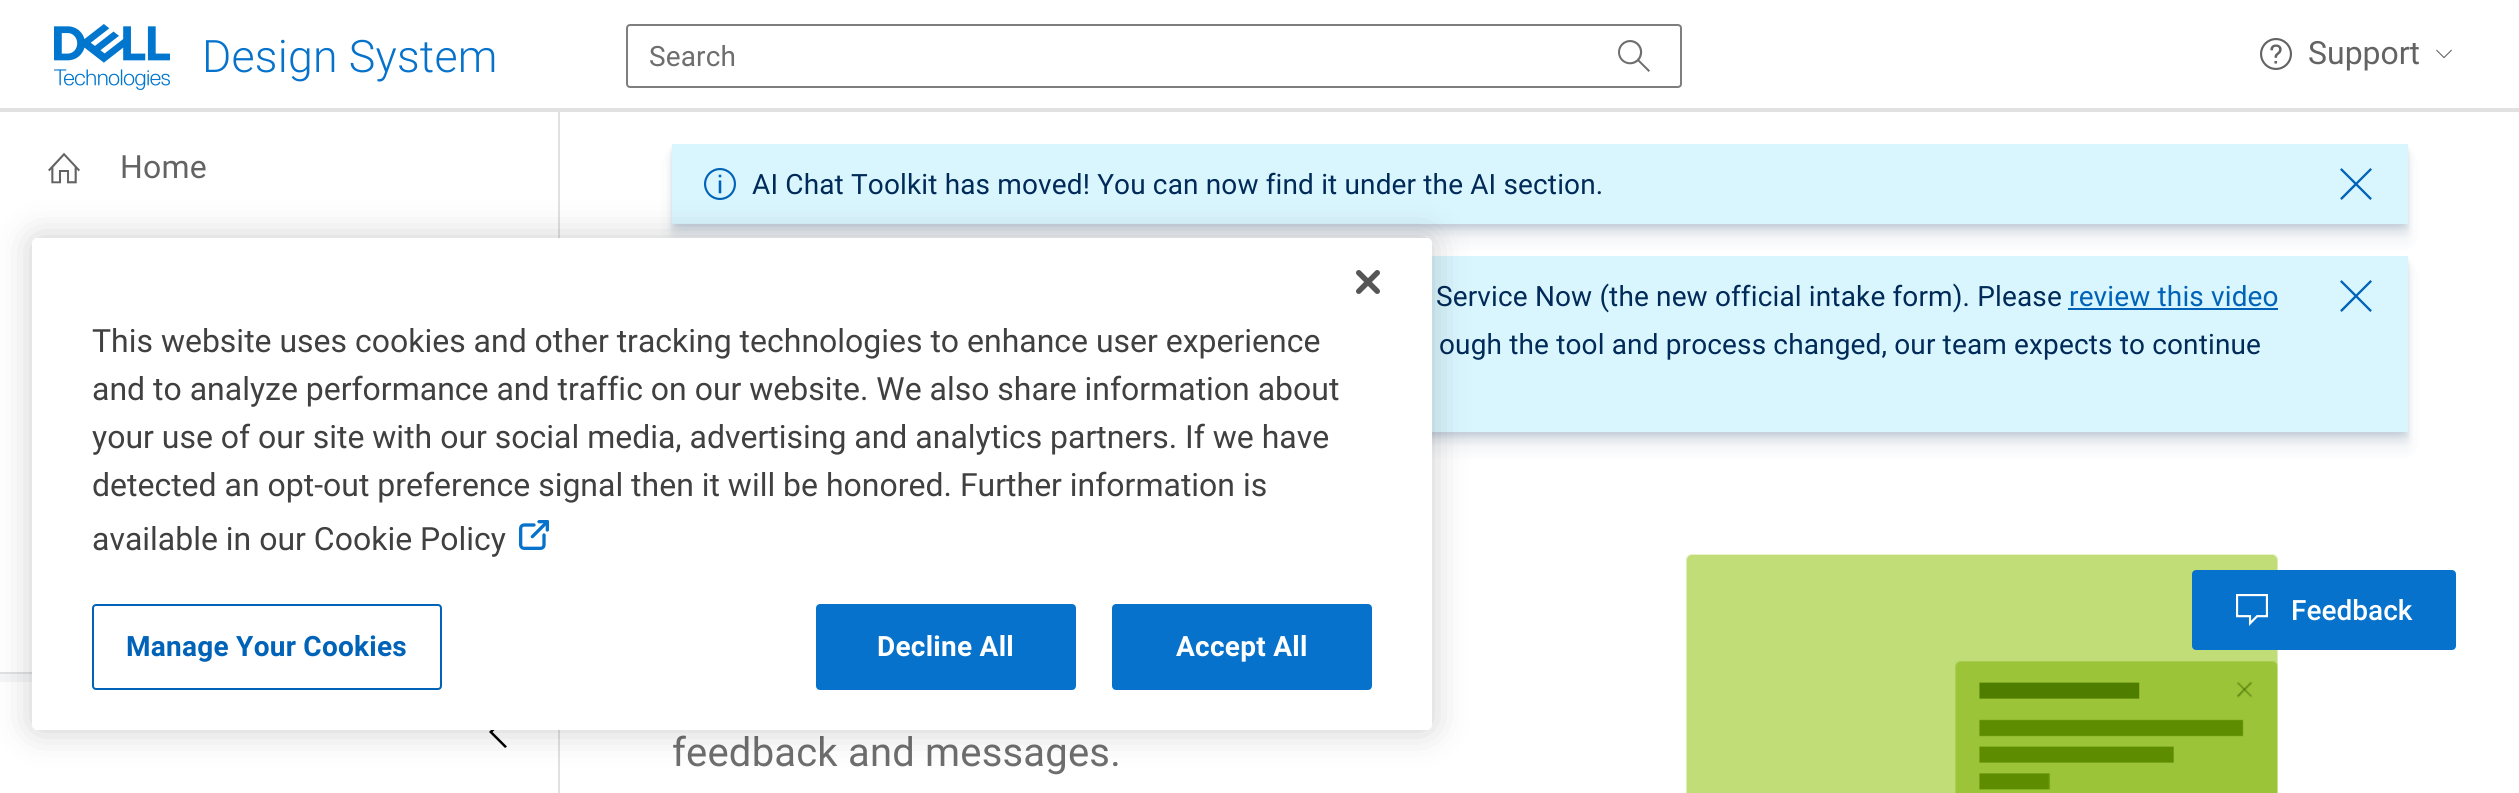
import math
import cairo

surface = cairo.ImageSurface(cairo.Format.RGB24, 2519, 793)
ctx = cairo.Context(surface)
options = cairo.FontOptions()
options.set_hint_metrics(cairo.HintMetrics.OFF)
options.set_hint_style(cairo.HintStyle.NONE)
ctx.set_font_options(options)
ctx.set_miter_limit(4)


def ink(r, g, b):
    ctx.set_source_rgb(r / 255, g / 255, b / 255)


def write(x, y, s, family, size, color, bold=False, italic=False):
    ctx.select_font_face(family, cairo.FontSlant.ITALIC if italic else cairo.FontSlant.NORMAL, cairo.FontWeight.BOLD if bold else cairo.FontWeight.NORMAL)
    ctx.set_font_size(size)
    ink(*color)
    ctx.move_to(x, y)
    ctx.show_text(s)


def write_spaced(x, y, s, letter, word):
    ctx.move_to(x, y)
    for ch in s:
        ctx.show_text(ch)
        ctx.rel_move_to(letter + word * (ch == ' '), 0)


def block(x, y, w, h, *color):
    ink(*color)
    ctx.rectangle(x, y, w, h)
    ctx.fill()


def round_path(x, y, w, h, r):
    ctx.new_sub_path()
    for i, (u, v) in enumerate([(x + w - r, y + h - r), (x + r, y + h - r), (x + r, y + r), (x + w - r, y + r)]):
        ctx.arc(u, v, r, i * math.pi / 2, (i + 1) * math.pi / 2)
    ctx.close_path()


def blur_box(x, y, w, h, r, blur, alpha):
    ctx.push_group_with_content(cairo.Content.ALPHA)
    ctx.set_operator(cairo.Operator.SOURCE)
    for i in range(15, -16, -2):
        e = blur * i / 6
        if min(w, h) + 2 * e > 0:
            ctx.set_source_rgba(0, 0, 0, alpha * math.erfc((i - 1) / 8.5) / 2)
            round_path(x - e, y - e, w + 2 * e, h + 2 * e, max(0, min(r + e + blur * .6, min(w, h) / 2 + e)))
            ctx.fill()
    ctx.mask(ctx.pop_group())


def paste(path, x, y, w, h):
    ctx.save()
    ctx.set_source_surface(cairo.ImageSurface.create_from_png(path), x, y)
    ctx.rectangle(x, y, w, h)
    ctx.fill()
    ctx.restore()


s1 = dict(family="Roboto", size=32, color=(99, 99, 99))
s2 = dict(family="Roboto Medium", size=28, color=(255, 255, 255))
s3 = dict(family="Roboto", size=32, color=(64, 64, 64))

ink(255, 255, 255)
ctx.paint()
block(0, 108, 2519, 4, 225, 225, 225)
paste("pic1.png", 54, 24, 116, 66)
ctx.select_font_face("Roboto Light")
ctx.set_font_size(44.75)
ink(6, 114, 203)
write_spaced(202, 72, "Design System", 0.2, 0)
round_path(627, 25, 1054, 62, 3)
ink(126, 126, 126)
ctx.stroke()
ctx.select_font_face("Roboto")
ctx.set_font_size(28)
ink(110, 110, 110)
write_spaced(649, 66, "Search", 0.15, 0)
paste("pic2.png", 1618, 40, 32, 32)
paste("pic3.png", 2260, 38, 32, 32)
write(2308, 64, "Support", **s1)
paste("pic4.png", 2436, 49, 16, 10)
block(558, 112, 2, 681, 225, 225, 225)
paste("pic5.png", 48, 152, 32, 32)
ink(99, 99, 99)
write_spaced(120, 178, "Home", 0.2, 0)
block(0, 674, 32, 8, 245, 246, 247)
block(0, 672, 32, 2, 225, 225, 225)
ink(0, 0, 0)
ctx.new_path()
ctx.move_to(507, 717.5)
ctx.line_to(505, 716)
ctx.line_to(489, 732)
ctx.line_to(505, 748)
ctx.line_to(507, 746.5)
ctx.line_to(492.5, 732)
ctx.close_path()
ctx.fill()
ink(0, 42, 88)
blur_box(672, 160, 1736, 80, 0, 8, 0.08)
blur_box(672, 152, 1736, 80, 0, 4, 0.08)
blur_box(672, 148, 1736, 80, 0, 2, 0.08)
block(672, 144, 1736, 80, 217, 245, 253)
paste("pic6.png", 704, 168, 32, 32)
ctx.set_font_size(28)
ink(0, 42, 88)
write_spaced(752, 194, "AI Chat Toolkit has moved! You can now find it under the AI section.", 0.15, 0)
paste("pic7.png", 2340, 168, 32, 32)
ink(0, 42, 88)
blur_box(672, 272, 1736, 176, 0, 8, 0.08)
blur_box(672, 264, 1736, 176, 0, 4, 0.08)
blur_box(672, 260, 1736, 176, 0, 2, 0.08)
block(1432, 256, 976, 176, 217, 245, 253)
ink(0, 42, 88)
write_spaced(1436, 306, "Service Now (the new official intake form). Please", 0.15, 0)
ink(0, 99, 184)
write_spaced(2069, 306, "review this video", 0.15, 0)
block(2068, 308, 210, 2, 0, 99, 184)
ink(0, 42, 88)
write_spaced(1439, 354, "ough the tool and process changed, our team expects to continue", 0.15, 0)
paste("pic7.png", 2340, 280, 32, 32)
ctx.set_font_size(40)
ink(110, 110, 110)
write_spaced(672, 766, "feedback and messages.", 0.2, 0)
paste("pic8.png", 1686, 554, 592, 239)
ink(6, 114, 203)
round_path(2193, 571, 262, 78, 3)
ctx.fill_preserve()
ctx.stroke()
paste("pic9.png", 2236, 594, 32, 32)
write(2291, 620, "Feedback", **s2)
ink(0, 0, 0)
blur_box(32, 238, 1400, 492, 5, 18, 0.2)
ink(255, 255, 255)
round_path(32, 238, 1400, 492, 5)
ctx.fill()
paste("pic10.png", 1356, 270, 24, 24)
write(92, 352, "This website uses cookies and other tracking technologies to enhance user experience", **s3)
write(92, 400, "and to analyze performance and traffic on our website. We also share information about", **s3)
write(92, 448, "your use of our site with our social media, advertising and analytics partners. If we have", **s3)
write(92, 496, "detected an opt-out preference signal then it will be honored. Further information is", **s3)
write(92, 550, "available in our Cookie Policy", **s3)
paste("pic11.png", 519, 520, 30, 30)
round_path(93, 605, 348, 84, 3)
ink(0, 99, 184)
ctx.stroke()
ctx.select_font_face("Roboto", cairo.FontSlant.NORMAL, cairo.FontWeight.BOLD)
ctx.set_font_size(28)
write_spaced(126, 656, "Manage Your Cookies", 0.25, 0)
ink(6, 114, 203)
round_path(817, 605, 258, 84, 3)
ctx.fill_preserve()
ctx.stroke()
ink(255, 255, 255)
write_spaced(877, 656, "Decline All", 0.25, 0)
ink(6, 114, 203)
round_path(1113, 605, 258, 84, 3)
ctx.fill_preserve()
ctx.stroke()
ink(255, 255, 255)
write_spaced(1176, 656, "Accept All", 0.25, 0)
surface.write_to_png("screenshot.png")
